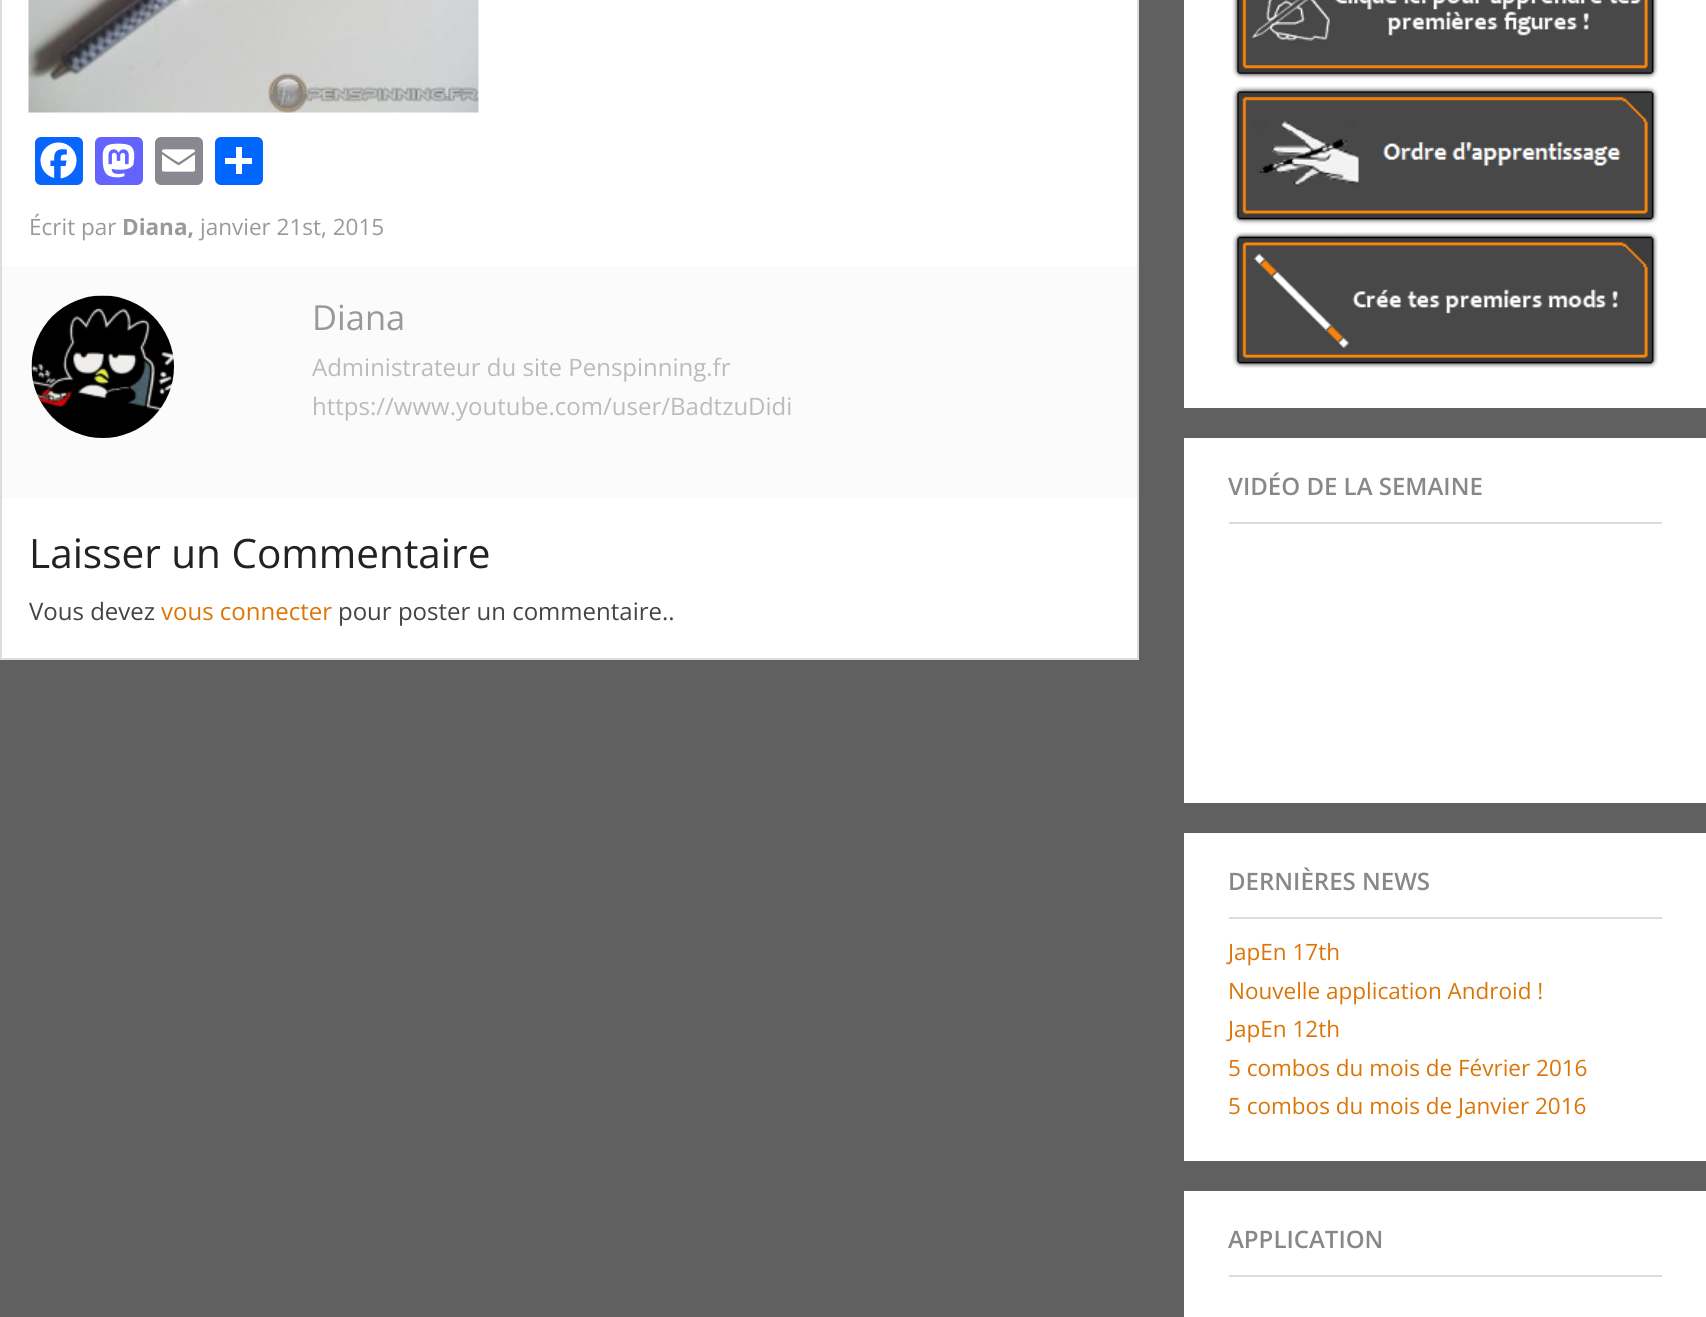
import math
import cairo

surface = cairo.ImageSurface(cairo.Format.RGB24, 1706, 1317)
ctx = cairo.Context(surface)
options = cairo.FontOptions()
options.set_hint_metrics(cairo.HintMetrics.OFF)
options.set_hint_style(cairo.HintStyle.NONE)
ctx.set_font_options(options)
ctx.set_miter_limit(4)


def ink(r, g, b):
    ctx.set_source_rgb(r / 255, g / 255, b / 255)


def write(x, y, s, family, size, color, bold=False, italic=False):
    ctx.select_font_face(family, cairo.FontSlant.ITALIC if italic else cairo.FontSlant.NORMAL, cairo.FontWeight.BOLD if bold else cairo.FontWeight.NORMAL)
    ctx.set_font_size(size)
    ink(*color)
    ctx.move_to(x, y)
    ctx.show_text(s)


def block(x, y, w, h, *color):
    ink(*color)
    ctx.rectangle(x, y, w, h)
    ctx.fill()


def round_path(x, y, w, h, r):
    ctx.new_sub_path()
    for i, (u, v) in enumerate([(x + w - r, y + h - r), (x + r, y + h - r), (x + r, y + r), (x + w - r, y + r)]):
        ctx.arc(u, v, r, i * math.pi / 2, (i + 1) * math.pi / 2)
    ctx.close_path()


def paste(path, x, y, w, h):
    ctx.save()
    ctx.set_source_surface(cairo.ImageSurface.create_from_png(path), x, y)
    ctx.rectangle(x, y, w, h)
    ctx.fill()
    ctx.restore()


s1 = dict(family="Open Sans", size=22.5, color=(153, 153, 153))
s2 = dict(family="Open Sans", size=22.5, color=(153, 153, 153), bold=True)
s3 = dict(family="Open Sans", size=34.5, color=(153, 153, 153))
s4 = dict(family="Open Sans", size=24, color=(187, 187, 187))
s5 = dict(family="Open Sans", size=40.5, color=(34, 34, 34))
s6 = dict(family="Open Sans", size=24, color=(68, 68, 68))
s7 = dict(family="Open Sans", size=24, color=(219, 117, 8))
s8 = dict(family="Open Sans SemiBold", size=24, color=(136, 136, 136))
s9 = dict(family="Open Sans", size=22.5, color=(219, 117, 8))

ink(96, 96, 96)
ctx.paint()
ink(255, 255, 255)
ctx.rectangle(1, -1, 1137, 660)
ctx.fill_preserve()
ink(221, 221, 221)
ctx.stroke()
paste("pic1.png", 28, 0, 451, 113)
ink(8, 102, 255)
round_path(35, 137, 48, 48, 6)
ctx.fill()
paste("pic2.png", 40, 142, 37, 37)
ink(99, 100, 255)
round_path(95, 137, 48, 48, 6)
ctx.fill()
paste("pic3.png", 102, 143, 33, 35)
ink(136, 137, 144)
round_path(155, 137, 48, 48, 6)
ctx.fill()
paste("pic4.png", 162, 149, 33, 23)
ink(1, 102, 255)
round_path(215, 137, 48, 48, 6)
ctx.fill()
block(236, 147, 6, 27, 255, 255, 255)
block(225, 158, 27, 6, 255, 255, 255)
write(29, 235, "Écrit par", **s1)
write(122, 235, "Diana,", **s2)
write(200, 235, "janvier 21st, 2015", **s1)
block(2, 266, 1135, 232, 251, 251, 251)
paste("pic5.png", 31, 295, 143, 143)
write(312, 330, "Diana", **s3)
write(312, 376, "Administrateur du site Penspinning.fr", **s4)
write(312, 415, "https://www.youtube.com/user/BadtzuDidi", **s4)
write(29, 568, "Laisser un Commentaire", **s5)
write(29, 620, "Vous devez", **s6)
write(161, 620, "vous connecter", **s7)
write(338, 620, "pour poster un commentaire..", **s6)
block(1184, 0, 522, 408, 255, 255, 255)
paste("pic6.png", 1232, 0, 426, 79)
paste("pic7.png", 1232, 86, 427, 139)
paste("pic8.png", 1232, 232, 426, 136)
block(1184, 438, 522, 365, 255, 255, 255)
block(1229, 522, 433, 2, 221, 221, 221)
write(1228, 495, "VIDÉO DE LA SEMAINE", **s8)
block(1184, 833, 522, 328, 255, 255, 255)
block(1229, 917, 433, 2, 221, 221, 221)
write(1228, 890, "DERNIÈRES NEWS", **s8)
write(1228, 960, "JapEn 17th", **s9)
write(1228, 999, "Nouvelle application Android !", **s9)
write(1228, 1037, "JapEn 12th", **s9)
write(1228, 1076, "5 combos du mois de Février 2016", **s9)
write(1228, 1114, "5 combos du mois de Janvier 2016", **s9)
block(1184, 1191, 522, 126, 255, 255, 255)
block(1229, 1275, 433, 2, 221, 221, 221)
write(1228, 1248, "APPLICATION", **s8)
surface.write_to_png("screenshot.png")
